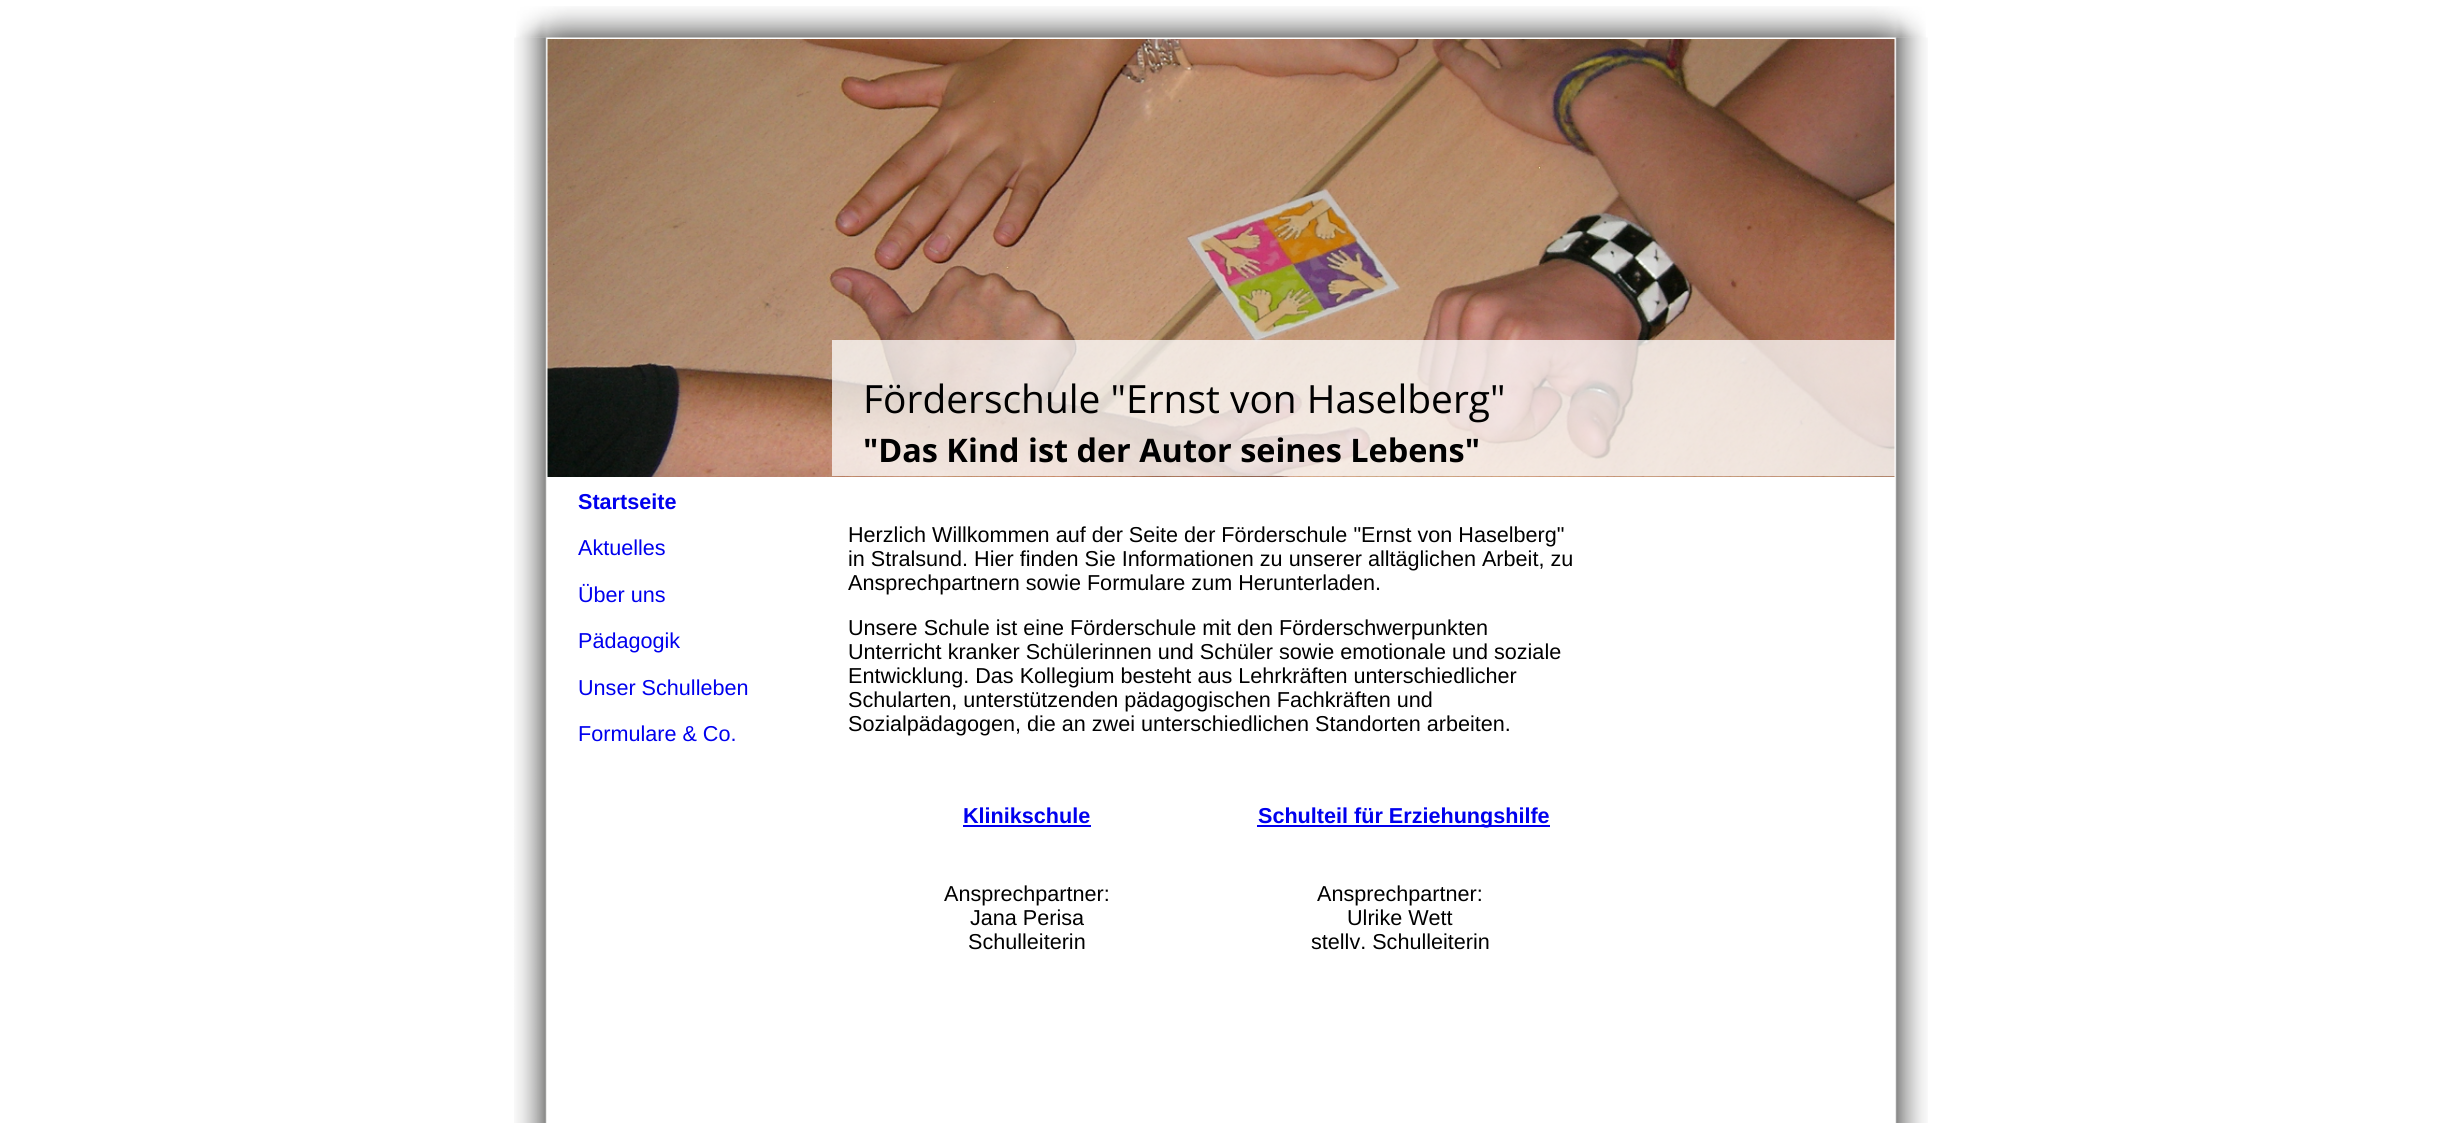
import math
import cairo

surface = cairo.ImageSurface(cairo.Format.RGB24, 2442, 1123)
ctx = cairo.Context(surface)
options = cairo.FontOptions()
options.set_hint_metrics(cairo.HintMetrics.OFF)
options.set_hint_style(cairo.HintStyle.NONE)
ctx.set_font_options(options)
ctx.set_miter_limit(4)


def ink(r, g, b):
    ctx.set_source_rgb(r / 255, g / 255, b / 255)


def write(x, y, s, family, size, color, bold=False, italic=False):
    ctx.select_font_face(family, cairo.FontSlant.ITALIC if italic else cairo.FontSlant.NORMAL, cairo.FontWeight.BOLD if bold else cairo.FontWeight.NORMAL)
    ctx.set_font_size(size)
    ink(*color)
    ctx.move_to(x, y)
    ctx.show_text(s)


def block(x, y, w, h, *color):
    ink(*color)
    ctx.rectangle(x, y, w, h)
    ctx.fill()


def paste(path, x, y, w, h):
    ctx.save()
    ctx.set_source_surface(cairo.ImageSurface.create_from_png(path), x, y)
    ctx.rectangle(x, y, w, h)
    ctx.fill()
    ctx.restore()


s1 = dict(family="Open Sans", size=38.9, color=(0, 0, 0))
s2 = dict(family="Open Sans", size=32.4, color=(0, 0, 0), bold=True)
s3 = dict(family="Liberation Sans", size=21.6, color=(0, 0, 238), bold=True)
s4 = dict(family="Liberation Sans", size=21.6, color=(0, 0, 238))
s5 = dict(family="Liberation Sans", size=21.6, color=(0, 0, 0))

ink(255, 255, 255)
ctx.paint()
paste("pic2.png", 514, 37, 1414, 1086)
paste("pic1.png", 516, 6, 1410, 32)
paste("pic3.png", 547, 39, 1348, 438)
ctx.set_source_rgba(1, 1, 1, 0.75)
ctx.rectangle(832, 340, 1063, 136)
ctx.fill()
write(863, 413, "Förderschule \"Ernst von Haselberg\"", **s1)
write(863, 462, "\"Das Kind ist der Autor seines Lebens\"", **s2)
write(578, 509, "Startseite", **s3)
write(578, 555, "Aktuelles", **s4)
write(578, 602, "Über uns", **s4)
write(578, 648, "Pädagogik", **s4)
write(578, 695, "Unser Schulleben", **s4)
write(578, 741, "Formulare & Co.", **s4)
write(848, 542, "Herzlich Willkommen auf der Seite der Förderschule \"Ernst von Haselberg\"", **s5)
write(848, 566, "in Stralsund. Hier finden Sie Informationen zu unserer alltäglichen Arbeit, zu", **s5)
write(848, 590, "Ansprechpartnern sowie Formulare zum Herunterladen.", **s5)
write(848, 635, "Unsere Schule ist eine Förderschule mit den Förderschwerpunkten", **s5)
write(848, 659, "Unterricht kranker Schülerinnen und Schüler sowie emotionale und soziale", **s5)
write(848, 683, "Entwicklung. Das Kollegium besteht aus Lehrkräften unterschiedlicher", **s5)
write(848, 707, "Schularten, unterstützenden pädagogischen Fachkräften und", **s5)
write(848, 731, "Sozialpädagogen, die an zwei unterschiedlichen Standorten arbeiten.", **s5)
write(963, 823, "Klinikschule", **s3)
block(963, 825, 128, 2, 0, 0, 238)
block(1257, 825, 293, 2, 0, 0, 238)
write(1258, 823, "Schulteil für Erziehungshilfe", **s3)
write(944, 901, "Ansprechpartner:", **s5)
write(970, 925, "Jana Perisa", **s5)
write(968, 949, "Schulleiterin", **s5)
write(1317, 901, "Ansprechpartner:", **s5)
write(1347, 925, "Ulrike Wett", **s5)
write(1311, 949, "stellv. Schulleiterin", **s5)
surface.write_to_png("screenshot.png")
